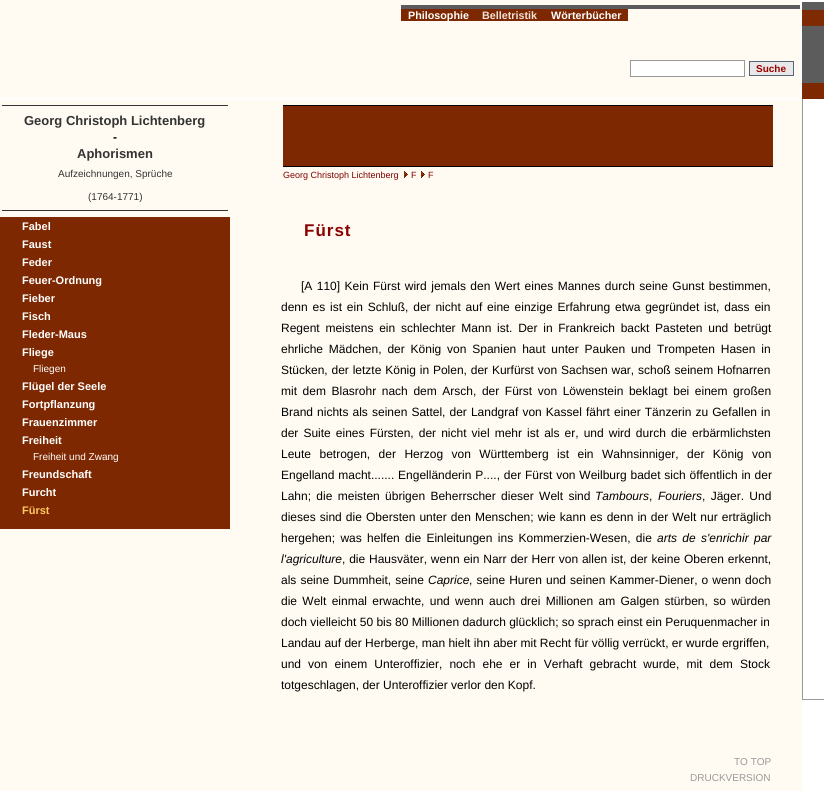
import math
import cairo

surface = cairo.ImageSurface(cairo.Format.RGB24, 824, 791)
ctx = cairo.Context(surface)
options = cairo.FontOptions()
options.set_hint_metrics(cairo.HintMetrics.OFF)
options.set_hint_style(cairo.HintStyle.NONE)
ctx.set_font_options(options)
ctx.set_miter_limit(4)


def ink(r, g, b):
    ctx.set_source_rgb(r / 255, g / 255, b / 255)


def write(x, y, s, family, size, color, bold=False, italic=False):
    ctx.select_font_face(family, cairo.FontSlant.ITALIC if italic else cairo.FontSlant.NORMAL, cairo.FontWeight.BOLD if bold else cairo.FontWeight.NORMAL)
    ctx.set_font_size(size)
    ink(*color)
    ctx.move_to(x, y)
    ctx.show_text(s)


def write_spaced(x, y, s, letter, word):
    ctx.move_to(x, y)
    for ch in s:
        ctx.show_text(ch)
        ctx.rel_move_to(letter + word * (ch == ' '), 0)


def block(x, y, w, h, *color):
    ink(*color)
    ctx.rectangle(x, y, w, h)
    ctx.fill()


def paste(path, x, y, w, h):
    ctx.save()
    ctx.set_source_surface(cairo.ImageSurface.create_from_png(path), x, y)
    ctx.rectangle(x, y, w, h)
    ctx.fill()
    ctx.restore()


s1 = dict(family="Liberation Sans", size=10.75, color=(255, 255, 255), bold=True)
s2 = dict(family="Liberation Sans", size=10.75, color=(242, 226, 217), bold=True)
s3 = dict(family="Liberation Sans", size=10, color=(153, 0, 0), bold=True)
s4 = dict(family="Liberation Sans", size=13, color=(51, 51, 51), bold=True)
s5 = dict(family="Liberation Sans", size=12, color=(0, 0, 0), bold=True)
s6 = dict(family="Liberation Sans", size=10, color=(51, 51, 51))
s7 = dict(family="Liberation Sans", size=11, color=(255, 255, 255), bold=True)
s8 = dict(family="Liberation Sans", size=10, color=(255, 255, 255))
s9 = dict(family="Liberation Sans", size=11, color=(255, 200, 98), bold=True)
s10 = dict(family="Liberation Sans", size=9, color=(125, 0, 0))
s11 = dict(family="Liberation Sans", size=12, color=(0, 0, 0), italic=True)
s12 = dict(family="Liberation Sans", size=12, color=(0, 0, 0))
s13 = dict(family="Liberation Sans", size=10, color=(153, 153, 153))

ink(255, 255, 255)
ctx.paint()
block(0, 0, 801, 98, 255, 251, 242)
block(401, 5, 399, 4, 92, 92, 92)
block(401, 9, 227, 12, 125, 40, 0)
write(408, 19, "Philosophie", **s1)
write(482, 19, "Belletristik", **s2)
write(551, 19, "Wörterbücher", **s1)
paste("pic1.png", 802, 2, 22, 78)
block(802, 80, 22, 3, 92, 92, 92)
block(802, 83, 22, 16, 125, 40, 0)
block(802, 699, 22, 1, 153, 153, 153)
block(802, 99, 1, 601, 153, 153, 153)
ink(255, 255, 255)
ctx.rectangle(630.5, 60.5, 114, 16)
ctx.fill_preserve()
ink(153, 153, 153)
ctx.set_line_width(1)
ctx.stroke()
ink(232, 232, 232)
ctx.rectangle(749.5, 61.5, 44, 14)
ctx.fill_preserve()
ink(87, 102, 117)
ctx.stroke()
write(756, 72, "Suche", **s3)
block(0, 100, 802, 691, 255, 251, 242)
block(2, 105, 226, 1, 51, 51, 51)
write(24, 125, "Georg Christoph Lichtenberg", **s4)
write(113, 141, "-", **s5)
write(77, 158, "Aphorismen", **s4)
write(58, 177, "Aufzeichnungen, Sprüche", **s6)
write(88, 200, "(1764-1771)", **s6)
block(2, 210, 226, 1, 51, 51, 51)
block(0, 217, 230, 312, 125, 40, 0)
write(22, 230, "Fabel", **s7)
write(22, 248, "Faust", **s7)
write(22, 266, "Feder", **s7)
write(22, 284, "Feuer-Ordnung", **s7)
write(22, 302, "Fieber", **s7)
write(22, 320, "Fisch", **s7)
write(22, 338, "Fleder-Maus", **s7)
write(22, 356, "Fliege", **s7)
write(33, 372, "Fliegen", **s8)
write(22, 390, "Flügel der Seele", **s7)
write(22, 408, "Fortpflanzung", **s7)
write(22, 426, "Frauenzimmer", **s7)
write(22, 444, "Freiheit", **s7)
write(33, 460, "Freiheit und Zwang", **s8)
write(22, 478, "Freundschaft", **s7)
write(22, 496, "Furcht", **s7)
write(22, 514, "Fürst", **s9)
block(283, 106, 490, 60, 125, 40, 0)
block(283, 105, 490, 1, 0, 0, 0)
block(283, 166, 490, 1, 0, 0, 0)
write(283, 178, "Georg Christoph Lichtenberg", **s10)
paste("pic2.png", 404, 171, 4, 7)
write(411, 178, "F", **s10)
paste("pic2.png", 421, 171, 4, 7)
write(428, 178, "F", **s10)
ctx.select_font_face("Liberation Sans", cairo.FontSlant.NORMAL, cairo.FontWeight.BOLD)
ctx.set_font_size(17)
ink(139, 0, 0)
write_spaced(304, 236, "Fürst", 1, 0)
ctx.select_font_face("Liberation Sans")
ctx.set_font_size(12)
ink(0, 0, 0)
write_spaced(301, 290, "[A 110] Kein Fürst wird jemals den Wert eines Mannes durch seine Gunst bestimmen,", 0, 1.1)
write_spaced(281, 311, "denn es ist ein Schluß, der nicht auf eine einzige Erfahrung etwa gegründet ist, dass ein", 0, 1.5)
write_spaced(281, 332, "Regent meistens ein schlechter Mann ist. Der in Frankreich backt Pasteten und betrügt", 0, 2.4)
write_spaced(281, 353, "ehrliche Mädchen, der König von Spanien haut unter Pauken und Trompeten Hasen in", 0, 2.5)
write_spaced(281, 374, "Stücken, der letzte König in Polen, der Kurfürst von Sachsen war, schoß seinem Hofnarren", 0, 0.5)
write_spaced(281, 395, "mit dem Blasrohr nach dem Arsch, der Fürst von Löwenstein beklagt bei einem großen", 0, 2.25)
write_spaced(281, 416, "Brand nichts als seinen Sattel, der Landgraf von Kassel fährt einer Tänzerin zu Gefallen in", 0, 0.75)
write_spaced(281, 437, "der Suite eines Fürsten, der nicht viel mehr ist als er, und wird durch die erbärmlichsten", 0, 1.75)
write_spaced(281, 458, "Leute betrogen, der Herzog von Württemberg ist ein Wahnsinniger, der König von", 0, 5.1)
write_spaced(281, 479, "Engelland macht....... Engelländerin P...., der Fürst von Weilburg badet sich öffentlich in der", 0, 0.5)
write_spaced(281, 500, "Lahn; die meisten übrigen Beherrscher dieser Welt sind", 0, 2)
write(595, 500, "Tambours", **s11)
write(649, 500, ",", **s12)
write(658, 500, "Fouriers", **s11)
ctx.select_font_face("Liberation Sans")
write_spaced(702, 500, ", Jäger. Und", 0, 2)
write_spaced(281, 521, "dieses sind die Obersten unter den Menschen; wie kann es denn in der Welt nur erträglich", 0, 0.75)
write_spaced(281, 542, "hergehen; was helfen die Einleitungen ins Kommerzien-Wesen, die", 0, 2)
ctx.select_font_face("Liberation Sans", cairo.FontSlant.ITALIC)
write_spaced(657, 542, "arts de s'enrichir par", 0, 2)
write(281, 563, "l'agriculture", **s11)
ctx.select_font_face("Liberation Sans")
write_spaced(342, 563, ", die Hausväter, wenn ein Narr der Herr von allen ist, der keine Oberen erkennt,", 0, 0.5)
write_spaced(281, 584, "als seine Dummheit, seine", 0, 0.75)
write(428, 584, "Caprice", **s11)
ctx.select_font_face("Liberation Sans")
write_spaced(469, 584, ", seine Huren und seinen Kammer-Diener, o wenn doch", 0, 0.75)
write_spaced(281, 605, "die Welt einmal erwachte, und wenn auch drei Millionen am Galgen stürben, so würden", 0, 2)
write(281, 626, "doch vielleicht 50 bis 80 Millionen dadurch glücklich; so sprach einst ein Peruquenmacher in", **s12)
write(281, 647, "Landau auf der Herberge, man hielt ihn aber mit Recht für völlig verrückt, er wurde ergriffen,", **s12)
write_spaced(281, 668, "und von einem Unteroffizier, noch ehe er in Verhaft gebracht wurde, mit dem Stock", 0, 3.75)
write(281, 689, "totgeschlagen, der Unteroffizier verlor den Kopf.", **s12)
write(734, 765, "TO TOP", **s13)
write(690, 781, "DRUCKVERSION", **s13)
surface.write_to_png("screenshot.png")
